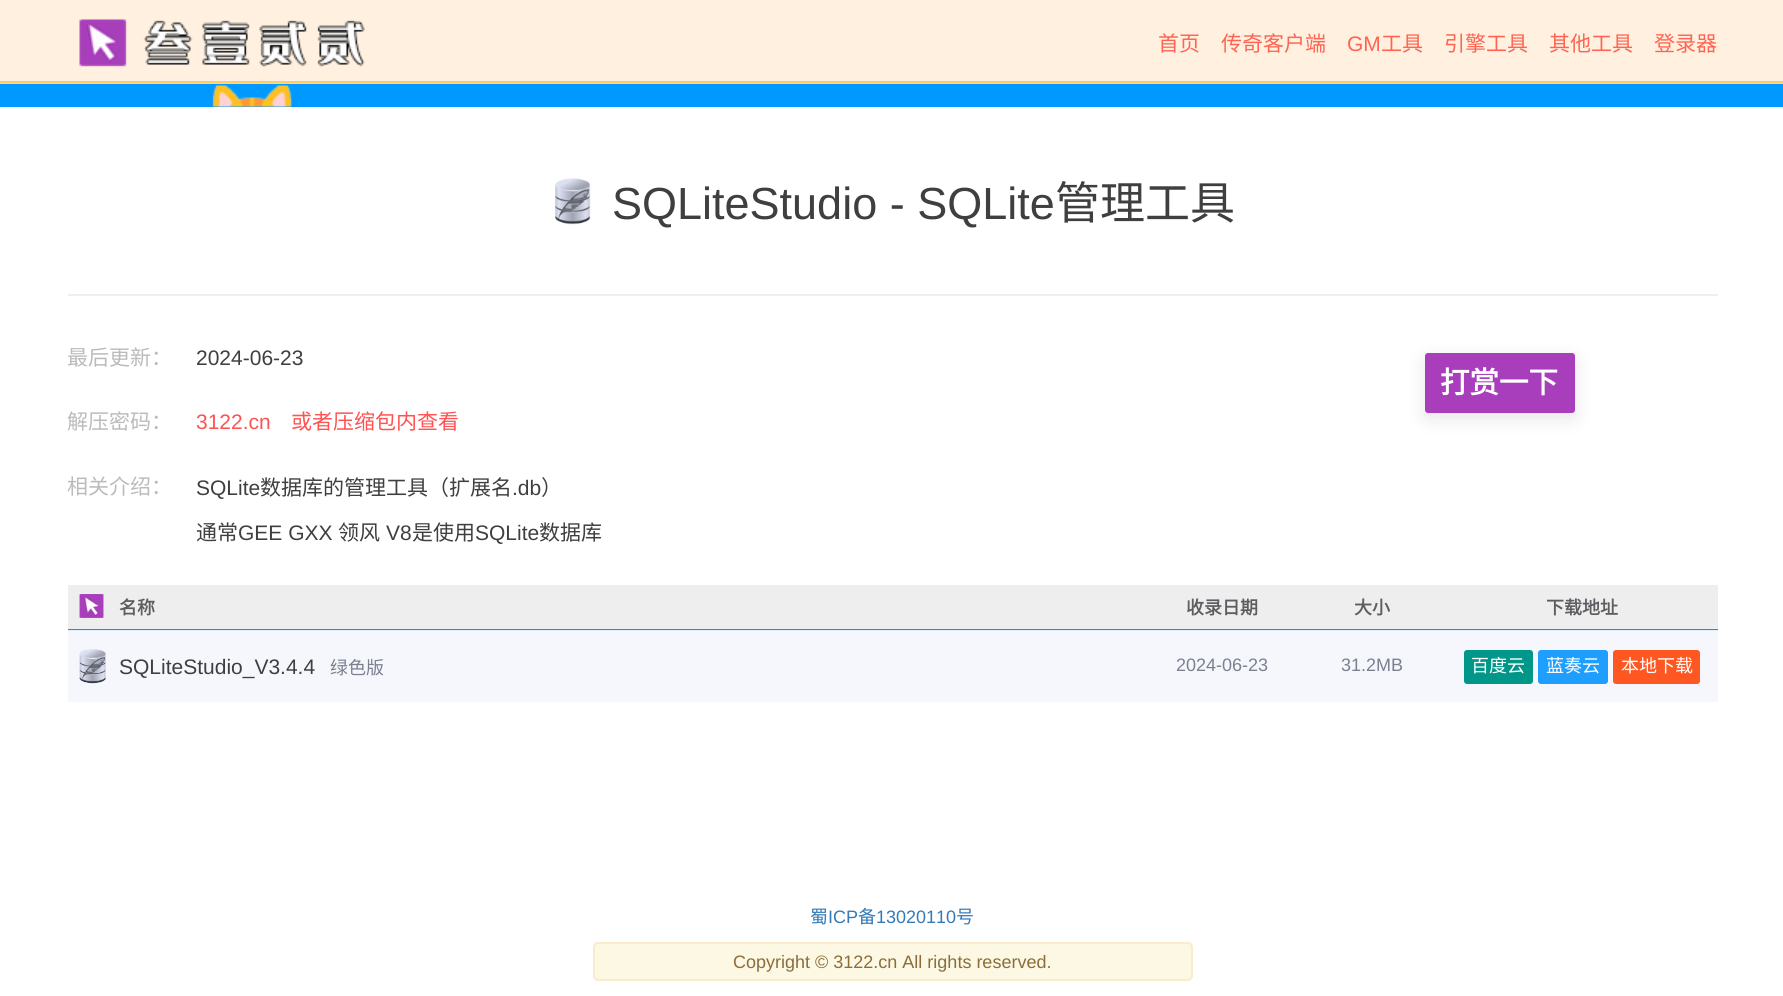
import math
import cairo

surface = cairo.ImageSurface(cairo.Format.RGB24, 1783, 996)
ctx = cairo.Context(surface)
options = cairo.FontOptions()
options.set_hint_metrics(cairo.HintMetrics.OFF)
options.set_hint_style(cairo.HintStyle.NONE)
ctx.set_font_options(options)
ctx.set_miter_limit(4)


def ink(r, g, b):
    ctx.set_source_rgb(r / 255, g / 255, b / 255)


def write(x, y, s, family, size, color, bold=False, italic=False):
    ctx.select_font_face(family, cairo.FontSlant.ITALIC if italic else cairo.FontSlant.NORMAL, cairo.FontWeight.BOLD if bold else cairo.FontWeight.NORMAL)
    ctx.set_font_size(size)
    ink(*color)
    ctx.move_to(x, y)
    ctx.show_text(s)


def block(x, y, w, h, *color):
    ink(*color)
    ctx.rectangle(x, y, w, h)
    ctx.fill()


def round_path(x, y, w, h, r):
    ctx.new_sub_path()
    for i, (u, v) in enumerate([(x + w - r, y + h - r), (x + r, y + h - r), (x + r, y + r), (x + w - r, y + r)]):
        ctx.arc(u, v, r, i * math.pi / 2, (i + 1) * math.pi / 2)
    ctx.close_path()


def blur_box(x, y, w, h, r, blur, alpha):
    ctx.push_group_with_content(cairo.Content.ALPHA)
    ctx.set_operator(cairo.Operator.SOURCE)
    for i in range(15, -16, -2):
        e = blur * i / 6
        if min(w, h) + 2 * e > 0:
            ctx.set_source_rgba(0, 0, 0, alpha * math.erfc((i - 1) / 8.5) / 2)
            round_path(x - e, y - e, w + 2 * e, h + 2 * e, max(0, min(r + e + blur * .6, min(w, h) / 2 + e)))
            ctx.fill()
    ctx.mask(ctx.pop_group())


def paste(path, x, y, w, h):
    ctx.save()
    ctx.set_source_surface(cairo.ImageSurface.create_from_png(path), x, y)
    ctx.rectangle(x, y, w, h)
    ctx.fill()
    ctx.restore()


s1 = dict(family="Noto Sans CJK SC", size=21, color=(255, 100, 82))
s2 = dict(family="Liberation Sans", size=21, color=(255, 100, 82))
s3 = dict(family="Liberation Sans", size=45, color=(63, 63, 63))
s4 = dict(family="Noto Sans CJK SC", size=45, color=(63, 63, 63))
s5 = dict(family="Noto Sans CJK SC", size=21, color=(187, 187, 187))
s6 = dict(family="Liberation Sans", size=21, color=(63, 63, 63))
s7 = dict(family="Liberation Sans", size=21, color=(255, 82, 82))
s8 = dict(family="Noto Sans CJK SC", size=21, color=(255, 82, 82))
s9 = dict(family="Noto Sans CJK SC", size=21, color=(63, 63, 63))
s10 = dict(family="Noto Sans CJK SC", size=18, color=(93, 94, 98), bold=True)
s11 = dict(family="Noto Sans CJK SC", size=18, color=(123, 128, 143))
s12 = dict(family="Liberation Sans", size=18, color=(123, 128, 143))
s13 = dict(family="Noto Sans CJK SC", size=18, color=(255, 255, 255))
s14 = dict(family="Noto Sans CJK SC", size=29.5, color=(255, 255, 255), bold=True)
s15 = dict(family="Noto Sans CJK SC", size=18, color=(51, 122, 183))
s16 = dict(family="Liberation Sans", size=18, color=(51, 122, 183))
s17 = dict(family="Liberation Sans", size=18, color=(138, 109, 59))

ink(255, 255, 255)
ctx.paint()
block(68, 631, 1650, 71, 245, 247, 252)
ink(177, 177, 177)
blur_box(0, 0, 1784, 83, 0, 4, 1)
block(0, 0, 1783, 81, 255, 240, 223)
block(0, 81, 1783, 2, 255, 204, 102)
paste("pic1.png", 79, 19, 286, 48)
write(1158, 51, "首页", **s1)
write(1221, 51, "传奇客户端", **s1)
write(1347, 51, "GM", **s2)
write(1381, 51, "工具", **s1)
write(1444, 51, "引擎工具", **s1)
write(1549, 51, "其他工具", **s1)
write(1654, 51, "登录器", **s1)
block(0, 84, 1783, 23, 0, 153, 255)
paste("pic2.png", 212, 85, 81, 22)
paste("pic3.png", 555, 178, 36, 47)
write(612, 219, "SQLiteStudio - SQLite", **s3)
write(1055, 219, "管理工具", **s4)
block(68, 294, 1650, 2, 238, 238, 238)
write(67, 365, "最后更新：", **s5)
write(196, 365, "2024-06-23", **s6)
write(67, 429, "解压密码：", **s5)
write(196, 429, "3122.cn", **s7)
write(291, 429, "或者压缩包内查看", **s8)
write(67, 494, "相关介绍：", **s5)
write(196, 495, "SQLite", **s6)
write(260, 495, "数据库的管理工具（扩展名", **s9)
write(512, 495, ".db", **s6)
write(541, 495, "）", **s9)
write(196, 540, "通常", **s9)
write(238, 540, "GEE GXX", **s6)
write(338, 540, "领风", **s9)
write(386, 540, "V8", **s6)
write(412, 540, "是使用", **s9)
write(475, 540, "SQLite", **s6)
write(539, 540, "数据库", **s9)
block(68, 585, 1650, 44, 238, 238, 238)
block(68, 629, 1650, 1, 0, 153, 255)
block(68, 630, 1650, 1, 220, 237, 252)
paste("pic4.png", 79, 594, 25, 24)
write(119, 614, "名称", **s10)
write(1186, 614, "收录日期", **s10)
write(1354, 614, "大小", **s10)
write(1546, 614, "下载地址", **s10)
paste("pic5.png", 79, 649, 27, 35)
write(119, 674, "SQLiteStudio_V3.4.4", **s6)
write(330, 674, "绿色版", **s11)
write(1176, 671, "2024-06-23", **s12)
write(1341, 671, "31.2MB", **s12)
ink(0, 150, 136)
round_path(1464, 650, 69, 34, 3)
ctx.fill()
write(1471, 672, "百度云", **s13)
ink(30, 159, 255)
round_path(1538, 650, 70, 34, 3)
ctx.fill()
write(1546, 672, "蓝奏云", **s13)
ink(255, 87, 34)
round_path(1613, 650, 87, 34, 3)
ctx.fill()
write(1621, 672, "本地下载", **s13)
ink(0, 0, 0)
blur_box(1425, 359, 150, 60, 3, 9, 0.1)
ink(168, 62, 187)
round_path(1425, 353, 150, 60, 3)
ctx.fill()
write(1440, 393, "打赏一下", **s14)
write(810, 923, "蜀", **s15)
write(828, 923, "ICP", **s16)
write(858, 923, "备", **s15)
write(876, 923, "13020110", **s16)
write(956, 923, "号", **s15)
ink(252, 248, 227)
round_path(594, 943, 598, 37, 4)
ctx.fill_preserve()
ink(250, 235, 204)
ctx.stroke()
write(733, 968, "Copyright © 3122.cn All rights reserved.", **s17)
surface.write_to_png("screenshot.png")
